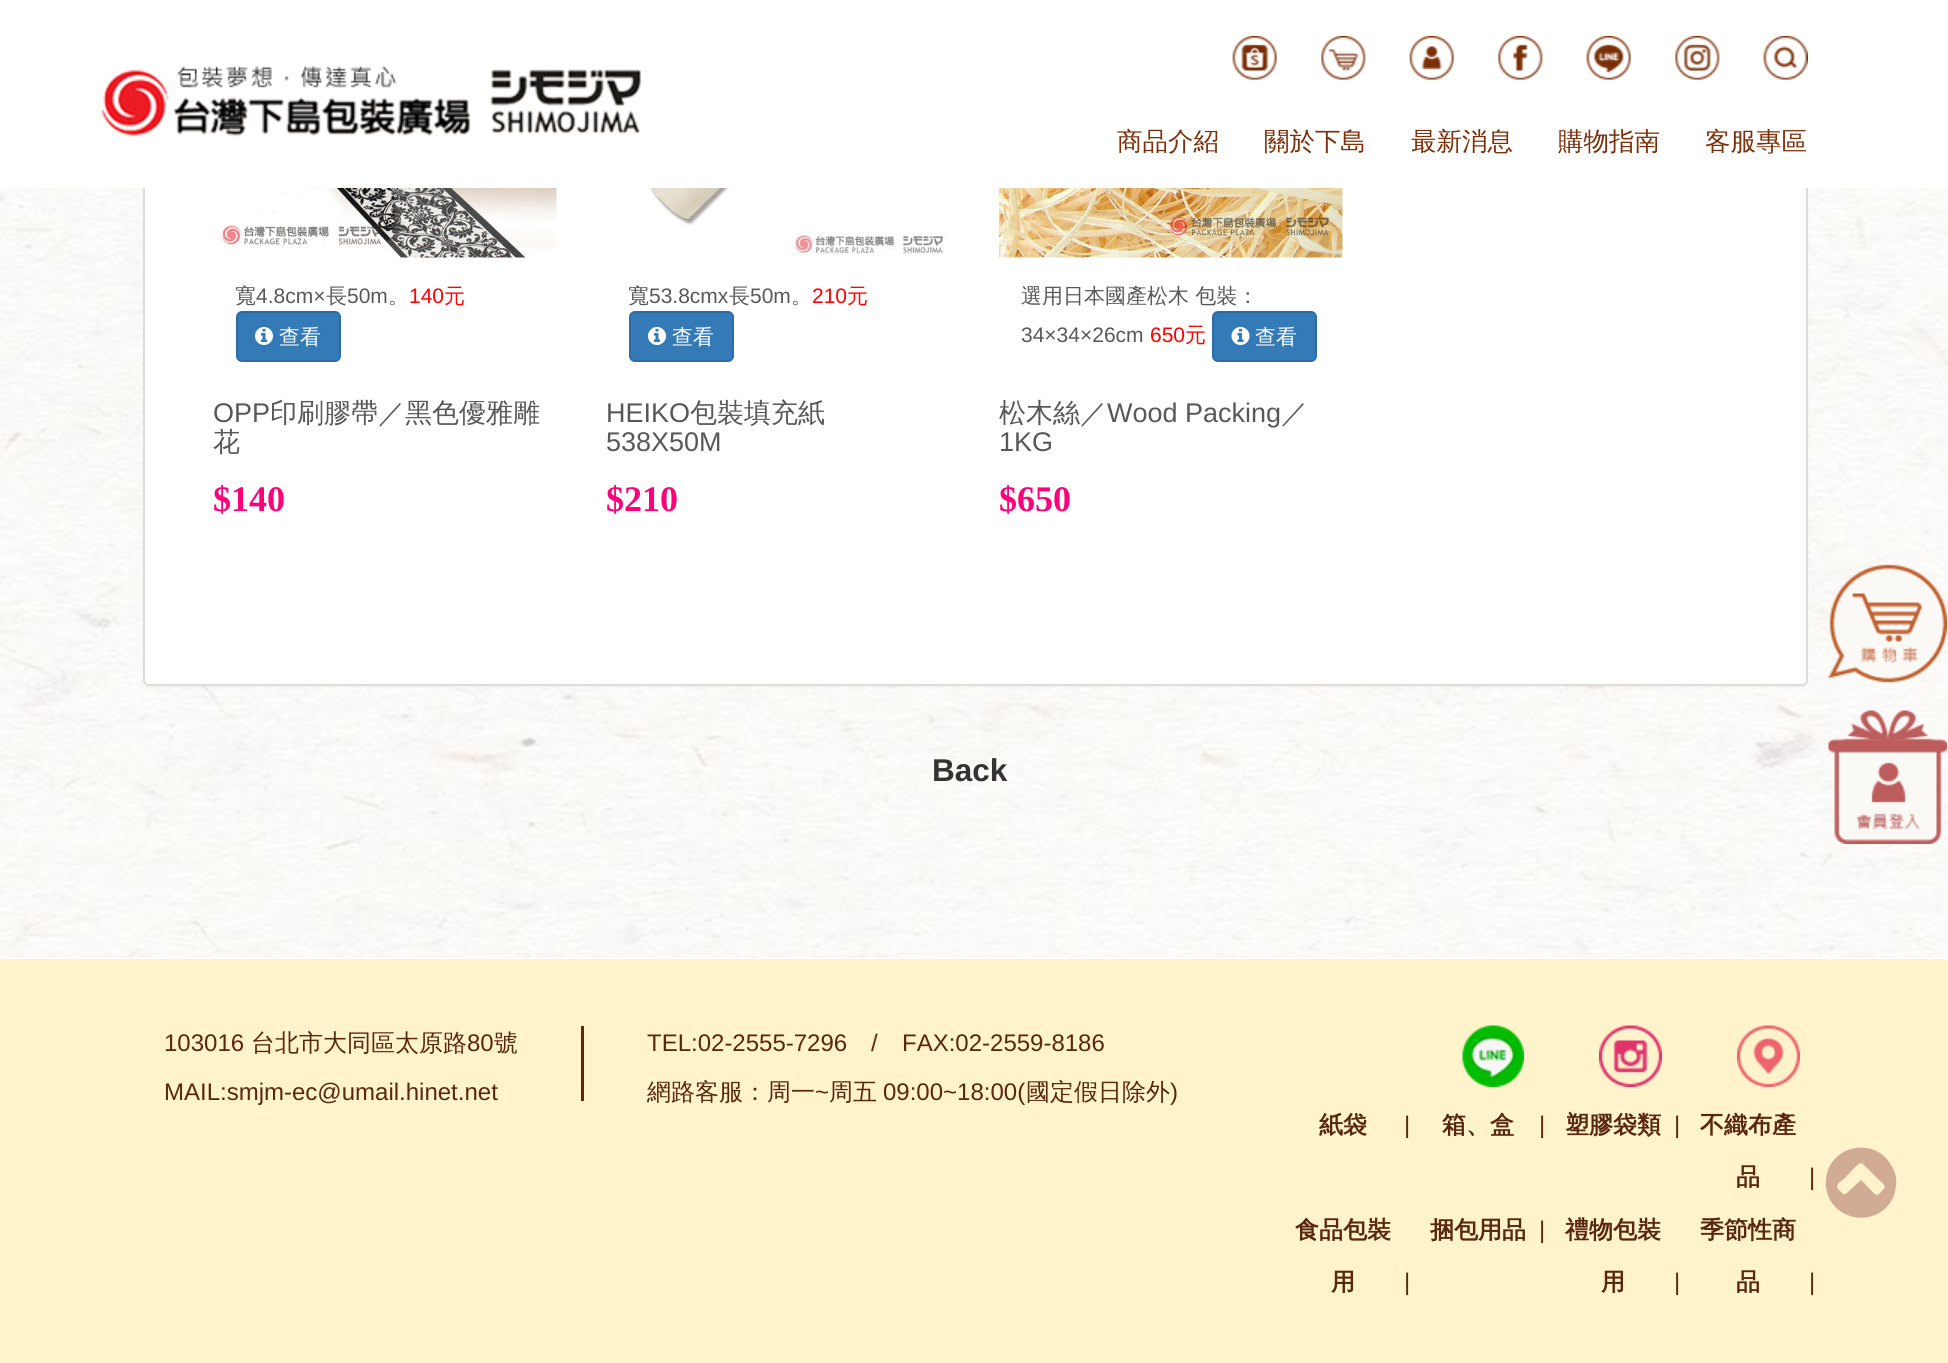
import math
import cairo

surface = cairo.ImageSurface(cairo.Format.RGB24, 1948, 1363)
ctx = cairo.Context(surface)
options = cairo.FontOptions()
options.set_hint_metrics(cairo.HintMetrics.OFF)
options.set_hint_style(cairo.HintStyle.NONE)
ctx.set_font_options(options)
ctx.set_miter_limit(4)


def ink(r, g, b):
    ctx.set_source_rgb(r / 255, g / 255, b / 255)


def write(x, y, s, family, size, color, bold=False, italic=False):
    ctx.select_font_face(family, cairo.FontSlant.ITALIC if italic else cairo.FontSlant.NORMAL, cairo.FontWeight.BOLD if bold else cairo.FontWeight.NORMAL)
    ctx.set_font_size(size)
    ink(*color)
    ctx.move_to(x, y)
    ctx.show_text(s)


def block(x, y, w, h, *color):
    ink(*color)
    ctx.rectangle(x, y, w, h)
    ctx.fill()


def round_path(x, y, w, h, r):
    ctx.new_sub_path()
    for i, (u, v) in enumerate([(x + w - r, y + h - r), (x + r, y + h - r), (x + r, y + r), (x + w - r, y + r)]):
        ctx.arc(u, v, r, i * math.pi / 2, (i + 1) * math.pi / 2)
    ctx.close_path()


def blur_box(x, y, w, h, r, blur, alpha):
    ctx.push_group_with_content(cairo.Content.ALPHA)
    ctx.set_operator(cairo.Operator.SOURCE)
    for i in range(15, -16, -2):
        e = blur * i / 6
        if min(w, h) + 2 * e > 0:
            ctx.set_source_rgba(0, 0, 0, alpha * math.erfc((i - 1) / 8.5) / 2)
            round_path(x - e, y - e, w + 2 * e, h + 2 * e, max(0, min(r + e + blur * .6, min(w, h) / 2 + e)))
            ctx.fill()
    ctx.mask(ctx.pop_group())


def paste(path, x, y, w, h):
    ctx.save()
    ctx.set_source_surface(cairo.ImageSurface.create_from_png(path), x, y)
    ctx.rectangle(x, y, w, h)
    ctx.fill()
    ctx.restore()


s1 = dict(family="WenQuanYi Zen Hei Medium", size=25.5, color=(121, 47, 8))
s2 = dict(family="WenQuanYi Zen Hei Medium", size=21, color=(88, 88, 88))
s3 = dict(family="Liberation Sans", size=21, color=(88, 88, 88))
s4 = dict(family="Liberation Sans", size=21, color=(255, 0, 0))
s5 = dict(family="WenQuanYi Zen Hei Medium", size=21, color=(255, 0, 0))
s6 = dict(family="WenQuanYi Zen Hei Medium", size=21, color=(255, 255, 255))
s7 = dict(family="Liberation Sans", size=27, color=(88, 88, 88))
s8 = dict(family="WenQuanYi Zen Hei Medium", size=27, color=(88, 88, 88))
s9 = dict(family="Liberation Serif", size=36, color=(255, 0, 124), bold=True)
s10 = dict(family="Liberation Sans", size=31.5, color=(51, 51, 51), bold=True)
s11 = dict(family="Liberation Sans", size=24, color=(89, 40, 14))
s12 = dict(family="WenQuanYi Zen Hei Medium", size=24, color=(89, 40, 14))
s13 = dict(family="WenQuanYi Zen Hei", size=24, color=(89, 40, 14), bold=True)

ink(255, 255, 255)
ctx.paint()
paste("pic9.png", 0, 188, 1948, 770)
ink(0, 0, 0)
blur_box(143, -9, 1665, 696, 6, 1, 0.05)
ink(255, 255, 255)
round_path(144, -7, 1663, 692, 5)
ctx.fill_preserve()
ink(221, 221, 221)
ctx.stroke()
block(142, 0, 1667, 188, 255, 255, 255)
paste("pic1.png", 101, 65, 540, 72)
paste("pic2.png", 1232, 36, 45, 44)
paste("pic3.png", 1321, 36, 45, 44)
paste("pic4.png", 1409, 36, 45, 44)
paste("pic5.png", 1498, 36, 45, 44)
paste("pic6.png", 1586, 36, 45, 44)
paste("pic7.png", 1675, 36, 45, 44)
paste("pic8.png", 1763, 36, 45, 44)
write(1117, 150, "商品介紹", **s1)
write(1264, 150, "關於下島", **s1)
write(1411, 150, "最新消息", **s1)
write(1558, 150, "購物指南", **s1)
write(1705, 150, "客服專區", **s1)
paste("pic10.png", 217, 188, 340, 70)
write(235, 303, "寬", **s2)
write(256, 303, "4.8cm×", **s3)
write(326, 303, "長", **s2)
write(347, 303, "50m", **s3)
write(388, 303, "。", **s2)
write(409, 303, "140", **s4)
write(444, 303, "元", **s5)
ink(51, 122, 183)
round_path(237, 312, 103, 49, 5)
ctx.fill_preserve()
ink(46, 109, 164)
ctx.stroke()
paste("pic11.png", 255, 327, 18, 18)
write(279, 344, "查看", **s6)
write(213, 422, "OPP", **s7)
write(270, 422, "印刷膠帶／黑色優雅雕", **s8)
write(213, 451, "花", **s8)
write(213, 511, "$140", **s9)
paste("pic12.png", 646, 188, 301, 67)
write(628, 303, "寬", **s2)
write(649, 303, "53.8cmx", **s3)
write(729, 303, "長", **s2)
write(750, 303, "50m", **s3)
write(791, 303, "。", **s2)
write(812, 303, "210", **s4)
write(847, 303, "元", **s5)
ink(51, 122, 183)
round_path(630, 312, 103, 49, 5)
ctx.fill_preserve()
ink(46, 109, 164)
ctx.stroke()
paste("pic11.png", 648, 327, 18, 18)
write(672, 344, "查看", **s6)
write(606, 422, "HEIKO", **s7)
write(690, 422, "包裝填充紙", **s8)
write(606, 451, "538X50M", **s7)
write(606, 511, "$210", **s9)
paste("pic13.png", 999, 188, 344, 70)
write(1021, 303, "選用日本國產松木 包裝：", **s2)
write(1021, 342, "34×34×26cm", **s3)
write(1150, 342, "650", **s4)
write(1185, 342, "元", **s5)
ink(51, 122, 183)
round_path(1213, 312, 103, 49, 5)
ctx.fill_preserve()
ink(46, 109, 164)
ctx.stroke()
paste("pic14.png", 1231, 327, 19, 18)
write(1255, 344, "查看", **s6)
write(999, 422, "松木絲／", **s8)
write(1107, 422, "Wood Packing", **s7)
write(1281, 422, "／", **s8)
write(999, 451, "1KG", **s7)
write(999, 511, "$650", **s9)
write(932, 781, "Back", **s10)
paste("pic15.png", 1828, 564, 119, 119)
paste("pic16.png", 1828, 710, 119, 134)
block(0, 959, 1948, 404, 255, 243, 204)
write(164, 1051, "103016", **s11)
write(251, 1051, "台北市大同區太原路", **s12)
write(467, 1051, "80", **s11)
write(494, 1051, "號", **s12)
write(164, 1100, "MAIL:smjm-ec@umail.hinet.net", **s11)
block(581, 1026, 3, 75, 89, 40, 14)
write(647, 1051, "TEL:02-2555-7296", **s11)
write(871, 1051, "/", **s11)
write(902, 1051, "FAX:02-2559-8186", **s11)
write(647, 1100, "網路客服：周一", **s12)
write(815, 1100, "~", **s11)
write(829, 1100, "周五", **s12)
write(883, 1100, "09:00~18:00(", **s11)
write(1026, 1100, "國定假日除外", **s12)
write(1170, 1100, ")", **s11)
paste("pic17.png", 1462, 1025, 62, 62)
paste("pic18.png", 1599, 1025, 63, 62)
paste("pic19.png", 1737, 1025, 63, 62)
write(1319, 1133, "紙袋", **s13)
write(1404, 1133, "|", **s11)
write(1442, 1133, "箱、盒", **s13)
write(1539, 1133, "|", **s11)
write(1565, 1133, "塑膠袋類", **s13)
write(1674, 1133, "|", **s11)
write(1700, 1133, "不織布產", **s13)
write(1736, 1185, "品", **s13)
write(1809, 1185, "|", **s11)
write(1295, 1238, "食品包裝", **s13)
write(1331, 1290, "用", **s13)
write(1404, 1290, "|", **s11)
write(1430, 1238, "捆包用品", **s13)
write(1539, 1238, "|", **s11)
write(1565, 1238, "禮物包裝", **s13)
write(1601, 1290, "用", **s13)
write(1674, 1290, "|", **s11)
write(1700, 1238, "季節性商", **s13)
write(1736, 1290, "品", **s13)
write(1809, 1290, "|", **s11)
ink(210, 171, 148)
ctx.new_path()
ctx.move_to(1879, 1194)
ctx.curve_to(1888, 1185, 1886, 1187, 1877, 1178)
ctx.line_to(1866, 1167)
ctx.curve_to(1861, 1162, 1861, 1162, 1855, 1167)
ctx.line_to(1845, 1178)
ctx.curve_to(1840, 1182, 1834, 1185, 1839, 1190)
ctx.curve_to(1844, 1195, 1844, 1196, 1849, 1191)
ctx.line_to(1861, 1180)
ctx.line_to(1870, 1189)
ctx.curve_to(1872, 1191, 1876, 1197, 1879, 1194)
ctx.close_path()
ctx.move_to(1891, 1165)
ctx.curve_to(1895, 1171, 1897, 1178, 1896, 1185)
ctx.curve_to(1894, 1220, 1848, 1230, 1830, 1200)
ctx.curve_to(1827, 1194, 1825, 1187, 1826, 1180)
ctx.curve_to(1828, 1146, 1874, 1135, 1891, 1165)
ctx.close_path()
ctx.fill()
surface.write_to_png("screenshot.png")
